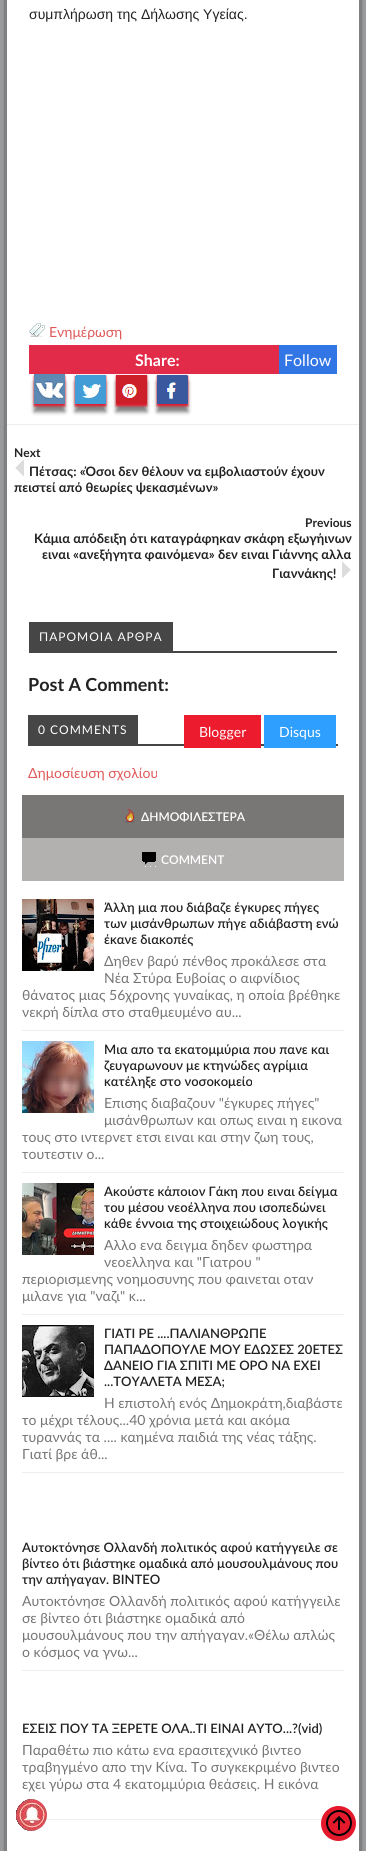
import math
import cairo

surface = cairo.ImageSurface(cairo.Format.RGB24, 366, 1851)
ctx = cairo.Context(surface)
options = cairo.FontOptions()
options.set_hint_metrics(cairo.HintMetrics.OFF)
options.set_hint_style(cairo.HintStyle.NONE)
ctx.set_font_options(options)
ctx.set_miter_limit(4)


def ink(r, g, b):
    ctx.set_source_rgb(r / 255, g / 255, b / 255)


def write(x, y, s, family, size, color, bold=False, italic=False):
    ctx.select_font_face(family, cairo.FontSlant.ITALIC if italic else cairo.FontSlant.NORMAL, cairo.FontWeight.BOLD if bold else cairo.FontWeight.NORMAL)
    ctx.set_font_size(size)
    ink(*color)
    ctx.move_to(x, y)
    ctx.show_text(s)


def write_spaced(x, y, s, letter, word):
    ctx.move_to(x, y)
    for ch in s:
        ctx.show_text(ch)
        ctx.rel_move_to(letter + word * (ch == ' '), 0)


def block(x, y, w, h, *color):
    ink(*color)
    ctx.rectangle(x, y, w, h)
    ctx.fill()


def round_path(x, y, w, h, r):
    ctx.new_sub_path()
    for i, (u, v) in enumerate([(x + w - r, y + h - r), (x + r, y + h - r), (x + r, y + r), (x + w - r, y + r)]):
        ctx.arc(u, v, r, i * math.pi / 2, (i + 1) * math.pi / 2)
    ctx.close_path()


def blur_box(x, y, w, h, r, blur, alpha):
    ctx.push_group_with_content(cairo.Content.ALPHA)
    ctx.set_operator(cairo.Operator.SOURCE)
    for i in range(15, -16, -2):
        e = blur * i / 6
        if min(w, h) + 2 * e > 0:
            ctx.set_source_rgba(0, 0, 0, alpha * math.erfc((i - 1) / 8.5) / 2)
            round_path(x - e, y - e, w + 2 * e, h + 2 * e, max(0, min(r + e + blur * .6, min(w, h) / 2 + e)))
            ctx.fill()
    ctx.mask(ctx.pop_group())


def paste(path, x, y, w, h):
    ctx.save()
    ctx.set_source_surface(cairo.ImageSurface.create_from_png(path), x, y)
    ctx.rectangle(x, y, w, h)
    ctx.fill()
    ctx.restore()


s1 = dict(family="Liberation Sans", size=14, color=(34, 34, 34))
s2 = dict(family="Lato", size=14, color=(223, 89, 89))
s3 = dict(family="Lato", size=16, color=(255, 255, 255), bold=True)
s4 = dict(family="Lato", size=16, color=(255, 255, 255))
s5 = dict(family="Lato", size=12, color=(34, 34, 34), bold=True)
s6 = dict(family="Lato", size=13, color=(34, 34, 34), bold=True)
s7 = dict(family="Lato", size=18, color=(34, 34, 34), bold=True)
s8 = dict(family="Lato", size=14, color=(255, 255, 255))
s9 = dict(family="Lato SemiBold", size=12, color=(255, 255, 255))
s10 = dict(family="Lato SemiBold", size=13, color=(34, 34, 34))
s11 = dict(family="Lato", size=14, color=(117, 117, 117))

ink(221, 223, 226)
ctx.paint()
ink(34, 34, 34)
blur_box(7, -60, 352, 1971, 0, 20, 1)
block(7, 0, 352, 1851, 255, 255, 255)
write(29, 19, "συμπλήρωση της Δήλωσης Υγείας.", **s1)
paste("pic1.png", 29, 323, 16, 14)
write(49, 337, "Ενημέρωση", **s2)
block(29, 345, 250, 29, 226, 43, 73)
write(135, 366, "Share:", **s3)
block(279, 345, 58, 29, 50, 117, 229)
write(284, 366, "Follow", **s4)
ink(130, 129, 129)
blur_box(34, 382, 31, 30, 0, 2, 1)
ink(229, 25, 44)
blur_box(34, 376, 31, 30, 0, 1, 1)
paste("pic2.png", 34, 374, 31, 30)
ink(130, 129, 129)
blur_box(75, 382, 31, 30, 0, 2, 1)
ink(229, 25, 44)
blur_box(75, 376, 31, 30, 0, 1, 1)
paste("pic3.png", 75, 375, 31, 29)
ink(130, 129, 129)
blur_box(116, 382, 31, 30, 0, 2, 1)
ink(229, 25, 44)
blur_box(116, 376, 31, 30, 0, 1, 1)
paste("pic4.png", 116, 375, 31, 29)
ink(130, 129, 129)
blur_box(157, 382, 31, 30, 0, 2, 1)
ink(229, 25, 44)
blur_box(157, 376, 31, 30, 0, 1, 1)
paste("pic5.png", 157, 375, 31, 29)
block(7, 424, 352, 1, 238, 238, 238)
write(14, 457, "Next", **s5)
paste("pic6.png", 15, 460, 9, 16)
write(29, 476, "Πέτσας: «Όσοι δεν θέλουν να εμβολιαστούν έχουν", **s6)
write(14, 492, "πειστεί από θεωρίες ψεκασμένων»", **s6)
write(305, 527, "Previous", **s5)
write(34, 543, "Κάμια απόδειξη ότι καταγράφηκαν σκάφη εξωγήινων", **s6)
write(42, 559, "ειναι «ανεξήγητα φαινόμενα» δεν ειναι Γιάννης αλλα", **s6)
write(272, 578, "Γιαννάκης!", **s6)
paste("pic7.png", 342, 562, 9, 16)
block(29, 651, 308, 2, 70, 70, 70)
block(29, 622, 144, 29, 70, 70, 70)
ctx.select_font_face("Lato")
ctx.set_font_size(12)
ink(255, 255, 255)
write_spaced(39, 641, "ΠΑΡΟΜΟΙΑ ΑΡΘΡΑ", 1, 0)
write(28, 691, "Post A Comment:", **s7)
block(28, 744, 310, 2, 70, 70, 70)
block(184, 715, 77, 33, 237, 27, 46)
write(199, 737, "Blogger", **s8)
block(264, 715, 72, 33, 46, 159, 255)
write(279, 737, "Disqus", **s8)
block(28, 715, 110, 29, 70, 70, 70)
ctx.set_font_size(12)
ink(255, 255, 255)
write_spaced(38, 734, "0 COMMENTS", 1, 0)
write(28, 778, "Δημοσίευση σχολίου", **s2)
block(22, 795, 322, 43, 121, 118, 118)
paste("pic8.png", 125, 809, 10, 14)
write(141, 821, "ΔΗΜΟΦΙΛΕΣΤΕΡΑ", **s9)
block(22, 838, 322, 43, 179, 176, 176)
paste("pic9.png", 142, 852, 14, 15)
write(161, 864, "COMMENT", **s9)
block(22, 1030, 322, 1, 238, 238, 238)
paste("pic10.png", 22, 899, 72, 72)
write(104, 912, "Άλλη μια που διάβαζε έγκυρες πήγες", **s10)
write(104, 928, "των μισάνθρωπων πήγε αδιάβαστη ενώ", **s10)
write(104, 944, "έκανε διακοπές", **s10)
write(104, 966, "Δηθεν βαρύ πένθος προκάλεσε στα", **s11)
write(104, 983, "Νέα Στύρα Ευβοίας ο αιφνίδιος", **s11)
write(22, 1000, "θάνατος μιας 56χρονης γυναίκας, η οποία βρέθηκε", **s11)
write(22, 1017, "νεκρή δίπλα στο σταθμευμένο αυ...", **s11)
block(22, 1172, 322, 1, 238, 238, 238)
paste("pic11.png", 22, 1041, 72, 72)
write(104, 1054, "Μια απο τα εκατομμύρια που πανε και", **s10)
write(104, 1070, "ζευγαρωνουν με κτηνώδες αγρίμια", **s10)
write(104, 1086, "κατέληξε στο νοσοκομείο", **s10)
write(104, 1108, "Επισης διαβαζουν \"έγκυρες πήγες\"", **s11)
write(104, 1125, "μισάνθρωπων και οπως ειναι η εικονα", **s11)
write(22, 1142, "τους στο ιντερνετ ετσι ειναι και στην ζωη τους,", **s11)
write(22, 1159, "τουτεστιν ο...", **s11)
block(22, 1314, 322, 1, 238, 238, 238)
paste("pic12.png", 22, 1183, 72, 72)
write(104, 1196, "Ακούστε κάποιον Γάκη που ειναι δείγμα", **s10)
write(104, 1212, "του μέσου νεοέλληνα που ισοπεδώνει", **s10)
write(104, 1228, "κάθε έννοια της στοιχειώδους λογικής", **s10)
write(104, 1250, "Αλλο ενα δειγμα δηδεν φωστηρα", **s11)
write(104, 1267, "νεοελληνα και \"Γιατρου \"", **s11)
write(22, 1284, "περιορισμενης νοημοσυνης που φαινεται οταν", **s11)
write(22, 1301, "μιλανε για \"ναζι\" κ...", **s11)
block(22, 1472, 322, 1, 238, 238, 238)
paste("pic13.png", 22, 1325, 72, 72)
write(104, 1338, "ΓΙΑΤΙ ΡΕ ....ΠΑΛΙΑΝΘΡΩΠΕ", **s10)
write(104, 1354, "ΠΑΠΑΔΟΠΟΥΛΕ ΜΟΥ ΕΔΩΣΕΣ 20ΕΤΕΣ", **s10)
write(104, 1370, "ΔΑΝΕΙΟ ΓΙΑ ΣΠΙΤΙ ΜΕ ΟΡΟ ΝΑ ΕΧΕΙ", **s10)
write(104, 1386, "...ΤΟΥΑΛΕΤΑ ΜΕΣΑ;", **s10)
write(104, 1408, "Η επιστολή ενός Δημοκράτη,διαβάστε", **s11)
write(22, 1425, "το μέχρι τέλους...40 χρόνια μετά και ακόμα", **s11)
write(22, 1442, "τυραννάς τα .... καημένα παιδιά της νέας τάξης.", **s11)
write(22, 1459, "Γιατί βρε άθ...", **s11)
block(22, 1670, 322, 1, 238, 238, 238)
write(22, 1552, "Αυτοκτόνησε Ολλανδή πολιτικός αφού κατήγγειλε σε", **s10)
write(22, 1568, "βίντεο ότι βιάστηκε ομαδικά από μουσουλμάνους που", **s10)
write(22, 1584, "την απήγαγαν. ΒΙΝΤΕΟ", **s10)
write(22, 1606, "Αυτοκτόνησε Ολλανδή πολιτικός αφού κατήγγειλε", **s11)
write(22, 1623, "σε βίντεο ότι βιάστηκε ομαδικά από", **s11)
write(22, 1640, "μουσουλμάνους που την απήγαγαν.«Θέλω απλώς", **s11)
write(22, 1657, "ο κόσμος να γνω...", **s11)
block(46, 1819, 276, 1, 238, 238, 238)
write(22, 1733, "ΕΣΕΙΣ ΠΟΥ ΤΑ ΞΕΡΕΤΕ ΟΛΑ..ΤΙ ΕΙΝΑΙ ΑΥΤΟ...?(vid)", **s10)
write(22, 1755, "Παραθέτω πιο κάτω ενα ερασιτεχνικό βιντεο", **s11)
write(22, 1772, "τραβηγμένο απο την Κίνα. Το συγκεκριμένο βιντεο", **s11)
write(22, 1789, "εχει γύρω στα 4 εκατομμύρια θεάσεις. Η εικόνα", **s11)
paste("pic14.png", 16, 1799, 31, 32)
ink(229, 25, 44)
ctx.arc(338.5, 1823.5, 17.5, 0, 2 * math.pi)
ctx.fill()
paste("pic15.png", 326, 1810, 26, 26)
surface.write_to_png("screenshot.png")
